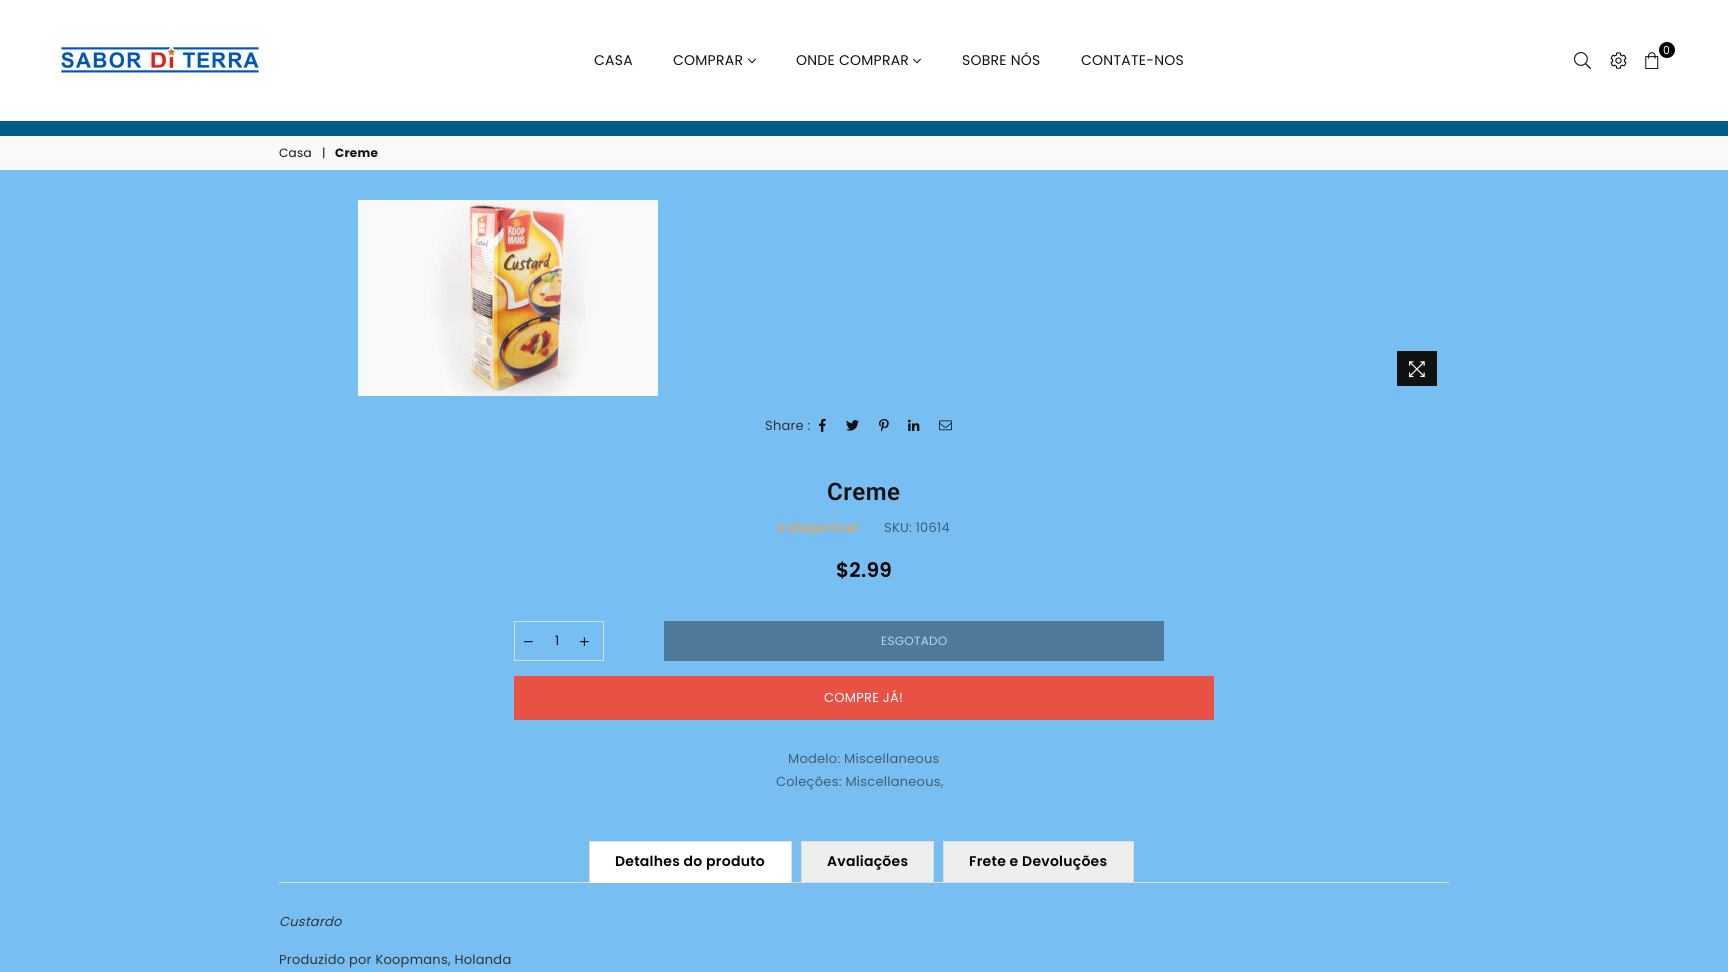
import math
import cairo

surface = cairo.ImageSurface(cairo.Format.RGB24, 1728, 972)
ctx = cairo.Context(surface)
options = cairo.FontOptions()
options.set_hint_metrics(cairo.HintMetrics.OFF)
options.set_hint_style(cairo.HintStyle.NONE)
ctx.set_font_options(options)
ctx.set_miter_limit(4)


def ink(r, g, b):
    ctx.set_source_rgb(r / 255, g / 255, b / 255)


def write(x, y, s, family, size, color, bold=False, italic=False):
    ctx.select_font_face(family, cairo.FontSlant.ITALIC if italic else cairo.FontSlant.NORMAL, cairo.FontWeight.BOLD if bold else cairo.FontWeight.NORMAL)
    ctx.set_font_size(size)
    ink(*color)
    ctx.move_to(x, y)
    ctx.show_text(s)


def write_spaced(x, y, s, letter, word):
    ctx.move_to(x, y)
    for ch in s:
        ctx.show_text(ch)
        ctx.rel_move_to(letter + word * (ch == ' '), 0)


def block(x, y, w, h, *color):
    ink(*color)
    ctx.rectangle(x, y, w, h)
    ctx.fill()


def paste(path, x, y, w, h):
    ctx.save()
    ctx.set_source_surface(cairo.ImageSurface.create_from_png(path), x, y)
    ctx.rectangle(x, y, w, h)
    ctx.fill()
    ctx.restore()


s1 = dict(family="Poppins", size=13, color=(17, 17, 17))

ink(119, 191, 242)
ctx.paint()
block(0, 0, 1728, 121, 255, 255, 255)
paste("pic1.png", 61, 47, 198, 26)
ctx.select_font_face("Poppins")
ctx.set_font_size(14)
ink(17, 17, 17)
write_spaced(594, 65, "CASA", 0.25, 0)
write_spaced(673, 65, "COMPRAR", 0.25, 0)
paste("pic2.png", 748, 58, 8, 6)
write_spaced(796, 65, "ONDE COMPRAR", 0.25, 0)
paste("pic2.png", 913, 58, 8, 6)
write_spaced(962, 65, "SOBRE NÓS", 0.25, 0)
write_spaced(1081, 65, "CONTATE-NOS", 0.25, 0)
ink(0, 0, 0)
ctx.new_path()
ctx.arc(1667, 50, 8, 0, 2 * math.pi)
ctx.fill()
ctx.set_font_size(11)
ink(255, 255, 255)
write_spaced(1663, 54, "0", 0.25, 0)
paste("pic3.png", 1645, 52, 14, 17)
paste("pic4.png", 1574, 52, 17, 17)
paste("pic5.png", 1610, 52, 17, 17)
block(0, 121, 1728, 15, 0, 92, 139)
block(0, 136, 1728, 34, 249, 249, 249)
ctx.set_font_size(12)
ink(17, 17, 17)
write_spaced(279, 157, "Casa", 0.25, 0)
write_spaced(322, 157, "|", 0.25, 0)
ctx.select_font_face("Poppins", cairo.FontSlant.NORMAL, cairo.FontWeight.BOLD)
write_spaced(335, 157, "Creme", 0.25, 0)
paste("pic6.png", 358, 200, 300, 196)
block(1397, 351, 40, 35, 17, 17, 17)
paste("pic7.png", 1409, 361, 16, 16)
ctx.select_font_face("Poppins")
ctx.set_font_size(13)
ink(51, 51, 51)
write_spaced(765, 430, "Share :", 0.25, 0)
paste("pic8.png", 819, 418, 7, 14)
paste("pic9.png", 846, 420, 13, 11)
paste("pic10.png", 879, 419, 10, 13)
paste("pic11.png", 908, 419, 12, 12)
paste("pic12.png", 939, 420, 13, 11)
ctx.select_font_face("Roboto SemiBold")
ctx.set_font_size(24)
ink(17, 17, 17)
write_spaced(827, 500, "Creme", 0.5, 0)
ctx.select_font_face("Poppins")
ctx.set_font_size(13)
ink(255, 159, 59)
write_spaced(778, 532, "Indisponível", 0.25, 0)
ink(71, 93, 108)
write_spaced(884, 532, "SKU: 10614", 0.25, 0)
ctx.select_font_face("Poppins SemiBold")
ctx.set_font_size(20)
ink(0, 0, 0)
write_spaced(836, 577, "$2.99", 0.25, 0)
ctx.rectangle(514.5, 621.5, 89, 39)
ink(221, 221, 221)
ctx.set_line_width(1)
ctx.stroke()
paste("pic13.png", 524, 641, 9, 2)
write(555, 645, "1", **s1)
paste("pic14.png", 580, 637, 9, 9)
block(664, 621, 500, 40, 78, 121, 152)
ctx.set_font_size(12)
ink(173, 217, 247)
write_spaced(881, 645, "ESGOTADO", 0.25, 0)
block(514, 676, 700, 44, 233, 81, 68)
ctx.set_font_size(13)
ink(255, 255, 255)
write_spaced(824, 702, "COMPRE JÁ!", 0.25, 0)
ink(71, 93, 108)
write_spaced(788, 763, "Modelo: Miscellaneous", 0.25, 0)
write_spaced(776, 786, "Coleções: Miscellaneous,", 0.25, 0)
block(279, 882, 1170, 1, 221, 221, 221)
block(590, 842, 201, 41, 255, 255, 255)
block(589, 841, 203, 1, 221, 221, 221)
block(791, 841, 1, 41, 221, 221, 221)
block(589, 841, 1, 41, 221, 221, 221)
ctx.select_font_face("Poppins SemiBold")
ctx.set_font_size(14)
ink(0, 0, 0)
write_spaced(615, 866, "Detalhes do produto", 0.25, 0)
block(802, 842, 131, 40, 238, 238, 238)
block(801, 841, 133, 1, 221, 221, 221)
block(933, 841, 1, 41, 221, 221, 221)
block(801, 841, 1, 41, 221, 221, 221)
ink(0, 0, 0)
write_spaced(827, 866, "Avaliações", 0.25, 0)
block(944, 842, 189, 40, 238, 238, 238)
block(943, 841, 191, 1, 221, 221, 221)
block(1133, 841, 1, 41, 221, 221, 221)
block(943, 841, 1, 41, 221, 221, 221)
ink(0, 0, 0)
write_spaced(969, 866, "Frete e Devoluções", 0.25, 0)
ctx.select_font_face("Poppins", cairo.FontSlant.ITALIC)
ctx.set_font_size(13)
ink(51, 51, 51)
write_spaced(279, 926, "Custardo", 0.25, 0)
ctx.select_font_face("Poppins")
write_spaced(279, 964, "Produzido por Koopmans, Holanda", 0.25, 0)
surface.write_to_png("screenshot.png")
